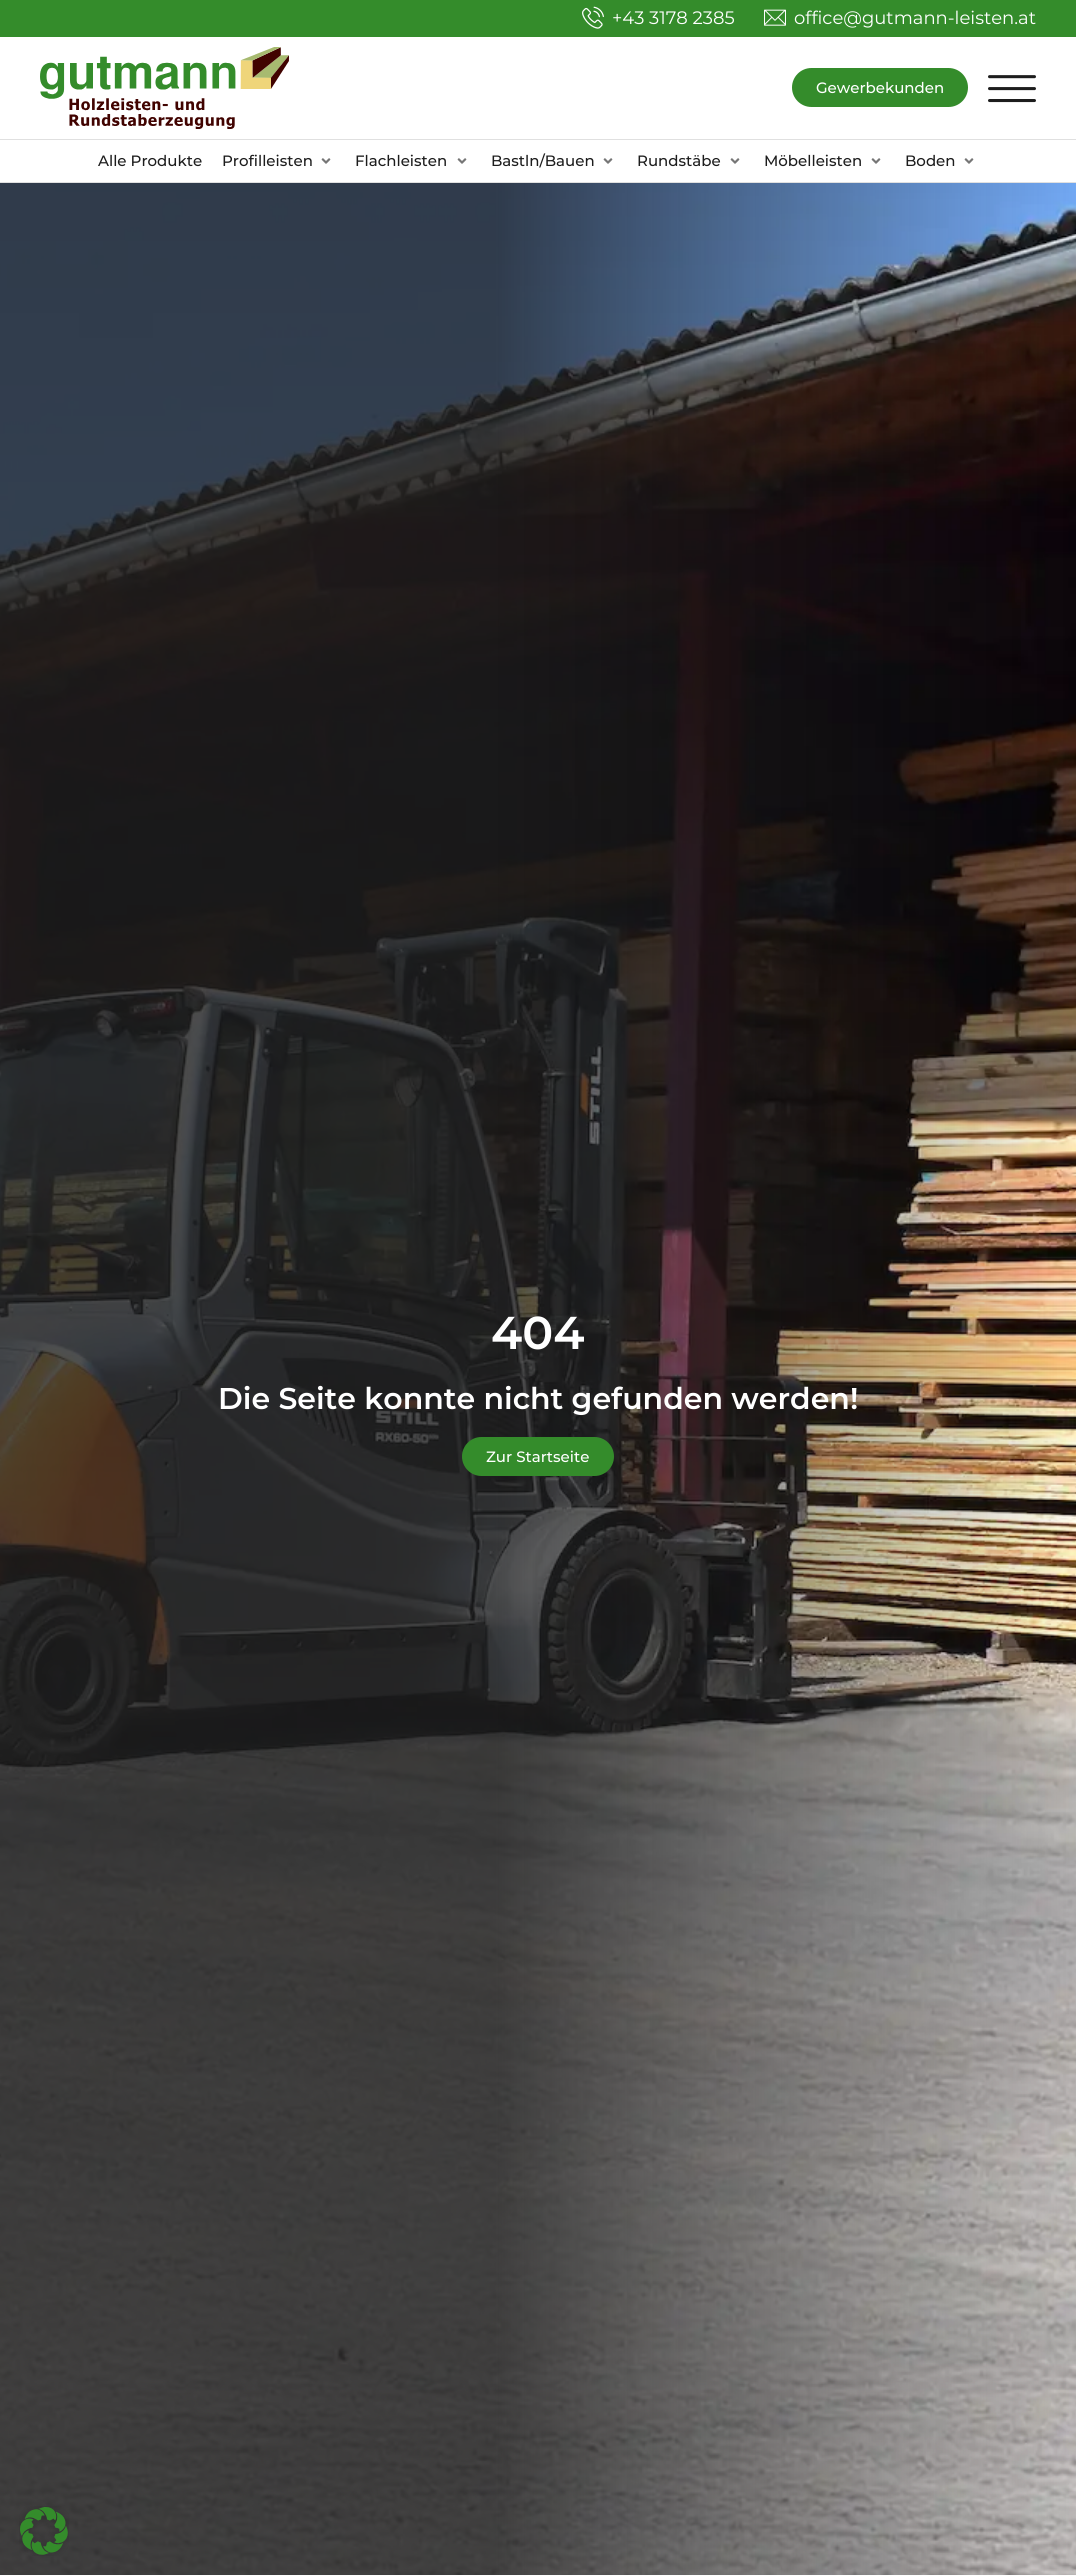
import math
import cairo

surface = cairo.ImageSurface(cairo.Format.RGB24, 1076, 2575)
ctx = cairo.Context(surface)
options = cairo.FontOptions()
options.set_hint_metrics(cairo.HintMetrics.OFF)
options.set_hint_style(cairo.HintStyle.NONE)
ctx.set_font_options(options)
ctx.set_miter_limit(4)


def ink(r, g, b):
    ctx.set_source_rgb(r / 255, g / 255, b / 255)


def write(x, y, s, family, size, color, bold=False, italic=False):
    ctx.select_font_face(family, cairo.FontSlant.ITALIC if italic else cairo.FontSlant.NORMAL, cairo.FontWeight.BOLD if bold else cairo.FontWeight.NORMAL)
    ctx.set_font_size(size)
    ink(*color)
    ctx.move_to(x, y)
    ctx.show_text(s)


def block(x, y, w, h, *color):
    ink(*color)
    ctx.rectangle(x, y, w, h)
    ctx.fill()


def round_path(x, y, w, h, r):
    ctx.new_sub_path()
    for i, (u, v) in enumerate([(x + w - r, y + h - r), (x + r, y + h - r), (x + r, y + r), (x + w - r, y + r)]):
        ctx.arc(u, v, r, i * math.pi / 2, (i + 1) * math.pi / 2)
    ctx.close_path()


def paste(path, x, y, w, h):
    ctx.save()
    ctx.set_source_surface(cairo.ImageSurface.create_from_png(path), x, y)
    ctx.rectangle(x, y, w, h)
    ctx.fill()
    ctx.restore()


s1 = dict(family="Montserrat", size=18, color=(255, 255, 255))
s2 = dict(family="Montserrat Medium", size=15, color=(255, 255, 255))
s3 = dict(family="Montserrat Medium", size=15, color=(29, 29, 29))
s4 = dict(family="Montserrat SemiBold", size=46, color=(255, 255, 255))
s5 = dict(family="Montserrat SemiBold", size=30, color=(255, 255, 255))

ink(255, 255, 255)
ctx.paint()
block(0, 0, 1076, 37, 52, 140, 43)
paste("pic1.png", 582, 6, 22, 23)
write(612, 24, "+43 3178 2385", **s1)
paste("pic2.png", 764, 9, 22, 17)
write(794, 24, "office@gutmann-leisten.at", **s1)
paste("pic3.png", 40, 47, 249, 82)
ink(52, 140, 43)
round_path(792, 68, 176, 39, 19.5)
ctx.fill()
write(816, 93, "Gewerbekunden", **s2)
paste("pic4.png", 988, 75, 48, 28)
block(0, 139, 1076, 1, 224, 224, 224)
block(0, 182, 1076, 1, 224, 224, 224)
write(98, 166, "Alle Produkte", **s3)
write(222, 166, "Profilleisten", **s3)
paste("pic5.png", 321, 158, 10, 6)
write(355, 166, "Flachleisten", **s3)
paste("pic5.png", 457, 158, 10, 6)
write(491, 166, "Bastln/Bauen", **s3)
paste("pic5.png", 603, 158, 10, 6)
write(637, 166, "Rundstäbe", **s3)
paste("pic5.png", 730, 158, 10, 6)
write(764, 166, "Möbelleisten", **s3)
paste("pic5.png", 871, 158, 10, 6)
write(905, 166, "Boden", **s3)
paste("pic5.png", 964, 158, 10, 6)
paste("pic6.png", 0, 183, 1076, 2392)
write(491, 1349, "404", **s4)
write(218, 1409, "Die Seite konnte nicht gefunden werden!", **s5)
ink(52, 140, 43)
round_path(462, 1437, 152, 39, 19.5)
ctx.fill()
write(486, 1462, "Zur Startseite", **s2)
paste("pic7.png", 19, 2506, 50, 50)
surface.write_to_png("screenshot.png")
